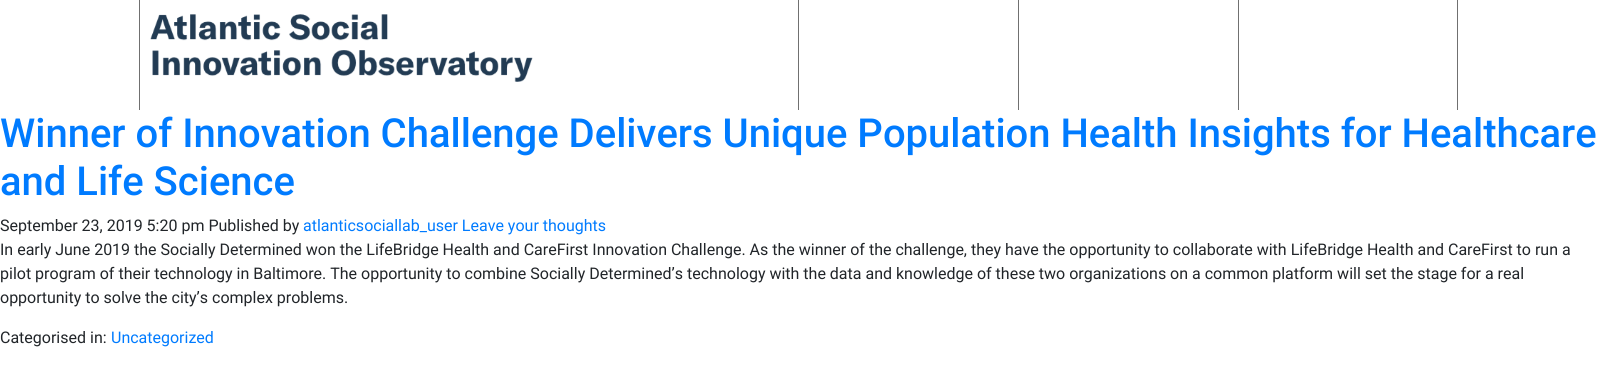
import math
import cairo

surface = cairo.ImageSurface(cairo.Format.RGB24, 1597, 367)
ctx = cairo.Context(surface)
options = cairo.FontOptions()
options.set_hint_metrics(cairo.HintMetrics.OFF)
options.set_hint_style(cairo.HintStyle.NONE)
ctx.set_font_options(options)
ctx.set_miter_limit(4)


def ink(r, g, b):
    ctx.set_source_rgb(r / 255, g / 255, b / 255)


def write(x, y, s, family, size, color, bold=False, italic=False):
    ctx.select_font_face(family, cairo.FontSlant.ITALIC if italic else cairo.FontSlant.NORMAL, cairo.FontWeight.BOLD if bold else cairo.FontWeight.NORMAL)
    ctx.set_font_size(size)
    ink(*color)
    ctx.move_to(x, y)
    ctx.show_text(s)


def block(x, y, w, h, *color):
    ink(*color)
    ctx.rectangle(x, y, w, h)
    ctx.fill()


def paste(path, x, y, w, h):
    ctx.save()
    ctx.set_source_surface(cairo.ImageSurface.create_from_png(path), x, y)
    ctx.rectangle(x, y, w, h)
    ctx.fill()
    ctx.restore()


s1 = dict(family="Roboto Medium", size=40, color=(0, 123, 255))
s2 = dict(family="Roboto", size=16, color=(33, 37, 41))
s3 = dict(family="Roboto", size=16, color=(0, 123, 255))

ink(255, 255, 255)
ctx.paint()
block(139, 0, 1, 110, 112, 112, 112)
paste("pic1.png", 150, 14, 383, 68)
block(798, 0, 1, 110, 112, 112, 112)
block(1018, 0, 1, 110, 112, 112, 112)
block(1238, 0, 1, 110, 112, 112, 112)
block(1457, 0, 1, 110, 112, 112, 112)
write(0, 147, "Winner of Innovation Challenge Delivers Unique Population Health Insights for Healthcare", **s1)
write(0, 195, "and Life Science", **s1)
write(0, 231, "September 23, 2019 5:20 pm Published by", **s2)
write(303, 231, "atlanticsociallab_user Leave your thoughts", **s3)
write(0, 255, "In early June 2019 the Socially Determined won the LifeBridge Health and CareFirst Innovation Challenge. As the winner of the challenge, they have the opportunity to collaborate with LifeBridge Health and CareFirst to run a", **s2)
write(0, 279, "pilot program of their technology in Baltimore. The opportunity to combine Socially Determined’s technology with the data and knowledge of these two organizations on a common platform will set the stage for a real", **s2)
write(0, 303, "opportunity to solve the city’s complex problems.", **s2)
write(0, 343, "Categorised in:", **s2)
write(111, 343, "Uncategorized", **s3)
surface.write_to_png("screenshot.png")
